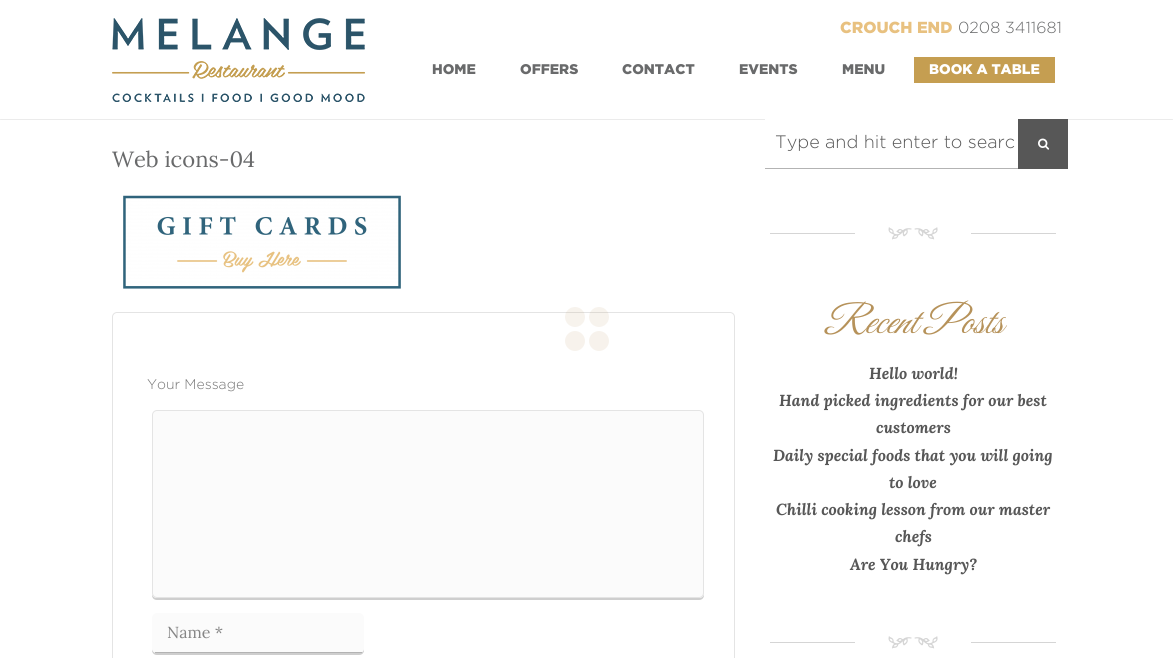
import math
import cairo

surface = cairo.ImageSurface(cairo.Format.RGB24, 1173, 658)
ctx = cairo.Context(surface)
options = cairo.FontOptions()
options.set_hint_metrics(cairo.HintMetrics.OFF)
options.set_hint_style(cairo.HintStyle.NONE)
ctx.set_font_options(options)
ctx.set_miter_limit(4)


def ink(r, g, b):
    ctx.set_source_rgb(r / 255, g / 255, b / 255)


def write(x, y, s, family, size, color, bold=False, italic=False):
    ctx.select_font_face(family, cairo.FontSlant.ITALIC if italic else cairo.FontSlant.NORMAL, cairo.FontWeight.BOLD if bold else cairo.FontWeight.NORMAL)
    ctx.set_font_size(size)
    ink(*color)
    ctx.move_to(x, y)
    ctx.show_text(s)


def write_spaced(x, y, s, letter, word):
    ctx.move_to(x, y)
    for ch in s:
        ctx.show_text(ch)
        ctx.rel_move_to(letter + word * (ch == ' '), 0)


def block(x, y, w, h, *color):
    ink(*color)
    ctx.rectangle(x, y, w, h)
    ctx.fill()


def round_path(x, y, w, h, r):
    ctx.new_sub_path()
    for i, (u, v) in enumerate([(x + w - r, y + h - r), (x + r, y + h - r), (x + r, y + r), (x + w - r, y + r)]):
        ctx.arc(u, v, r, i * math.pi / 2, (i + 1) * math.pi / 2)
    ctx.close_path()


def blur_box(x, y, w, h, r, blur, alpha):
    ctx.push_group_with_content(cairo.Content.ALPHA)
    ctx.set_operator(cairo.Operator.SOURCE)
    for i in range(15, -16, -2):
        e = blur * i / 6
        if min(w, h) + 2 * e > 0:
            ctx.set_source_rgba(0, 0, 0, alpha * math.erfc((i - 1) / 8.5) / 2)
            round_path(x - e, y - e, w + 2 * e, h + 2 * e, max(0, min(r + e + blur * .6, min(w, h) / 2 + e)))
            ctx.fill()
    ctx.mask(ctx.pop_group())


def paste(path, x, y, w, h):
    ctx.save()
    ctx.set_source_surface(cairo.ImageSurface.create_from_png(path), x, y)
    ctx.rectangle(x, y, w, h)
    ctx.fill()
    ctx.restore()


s1 = dict(family="Gotham Black", size=16, color=(232, 193, 128))
s2 = dict(family="Gotham Light", size=16, color=(105, 106, 107))
s3 = dict(family="Gotham Black", size=14, color=(105, 106, 107))
s4 = dict(family="Gotham Black", size=14, color=(255, 255, 255))
s5 = dict(family="Lora", size=22, color=(105, 106, 107))
s6 = dict(family="Gotham Light", size=14, color=(117, 117, 117))
s7 = dict(family="Lora", size=16, color=(133, 133, 133))
s8 = dict(family="Gotham Light", size=18, color=(87, 87, 87))
s9 = dict(family="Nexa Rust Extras", size=30, color=(213, 213, 213))
s10 = dict(family="Lora", size=16, color=(87, 87, 87), bold=True, italic=True)

ink(255, 255, 255)
ctx.paint()
ctx.save()
ctx.rectangle(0, 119, 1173, 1)
ctx.clip()
ink(26, 26, 26)
blur_box(0, 1, 1173, 119, 0, 0.5, 0.1)
ctx.restore()
paste("pic1.png", 112, 18, 253, 84)
write(840, 33, "CROUCH END", **s1)
write(958, 33, "0208 3411681", **s2)
write(432, 74, "HOME", **s3)
write(520, 74, "OFFERS", **s3)
write(622, 74, "CONTACT", **s3)
write(739, 74, "EVENTS", **s3)
write(842, 74, "MENU", **s3)
block(914, 57, 141, 26, 197, 158, 81)
write(929, 74, "BOOK A TABLE", **s4)
write(112, 167, "Web icons-04", **s5)
paste("pic2.png", 123, 195, 278, 94)
round_path(112.5, 312.5, 622, 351, 4.5)
ink(228, 228, 228)
ctx.set_line_width(1)
ctx.stroke()
write(147, 389, "Your Message", **s6)
ink(206, 206, 206)
ctx.new_path()
ctx.move_to(152, 593)
ctx.line_to(152, 595)
ctx.curve_to(152, 598, 154, 600, 157, 600)
ctx.line_to(699, 600)
ctx.curve_to(702, 600, 704, 598, 704, 595)
ctx.line_to(704, 593)
ctx.curve_to(704, 596, 702, 598, 699, 598)
ctx.line_to(157, 598)
ctx.curve_to(154, 598, 152, 596, 152, 593)
ctx.close_path()
ctx.fill()
ink(251, 251, 251)
round_path(152.5, 410.5, 551, 187, 4.5)
ctx.fill_preserve()
ink(228, 228, 228)
ctx.stroke()
ink(206, 206, 206)
ctx.new_path()
ctx.move_to(152, 648)
ctx.line_to(152, 650)
ctx.curve_to(152, 653, 154, 655, 157, 655)
ctx.line_to(359, 655)
ctx.curve_to(362, 655, 364, 653, 364, 650)
ctx.line_to(364, 648)
ctx.curve_to(364, 651, 362, 653, 359, 653)
ctx.line_to(157, 653)
ctx.curve_to(154, 653, 152, 651, 152, 648)
ctx.close_path()
ctx.fill()
ink(251, 251, 251)
round_path(152, 613, 212, 40, 5)
ctx.fill()
block(155, 652, 207, 1, 179, 179, 179)
write(167, 638, "Name *", **s7)
block(765, 119, 253, 1, 255, 255, 255)
block(765, 168, 253, 1, 179, 179, 179)
write(775, 148, "Type and hit enter to searc", **s8)
block(1018, 119, 50, 50, 87, 87, 87)
paste("pic3.png", 1038, 138, 12, 12)
block(770, 233, 85, 1, 213, 213, 213)
write(887, 242, "NM", **s9)
block(971, 233, 85, 1, 213, 213, 213)
ctx.select_font_face("Great Vibes", cairo.FontSlant.ITALIC)
ctx.set_font_size(40)
ink(182, 146, 90)
write_spaced(823, 333, "Recent Posts", 0, -1)
write(869, 379, "Hello world!", **s10)
write(779, 406, "Hand picked ingredients for our best", **s10)
write(876, 433, "customers", **s10)
write(773, 461, "Daily special foods that you will going", **s10)
write(889, 488, "to love", **s10)
write(776, 515, "Chilli cooking lesson from our master", **s10)
write(895, 542, "chefs", **s10)
write(850, 570, "Are You Hungry?", **s10)
block(770, 642, 85, 1, 213, 213, 213)
write(887, 651, "NM", **s9)
block(971, 642, 85, 1, 213, 213, 213)
ctx.set_source_rgba(0.682, 0.525, 0.282, 0.1)
ctx.new_path()
ctx.arc(575, 317, 10, 0, 2 * math.pi)
ctx.fill()
ctx.arc(599, 317, 10, 0, 2 * math.pi)
ctx.fill()
ink(247, 242, 236)
ctx.arc(575, 341, 10, 0, 2 * math.pi)
ctx.fill()
ctx.arc(599, 341, 10, 0, 2 * math.pi)
ctx.fill()
surface.write_to_png("screenshot.png")
